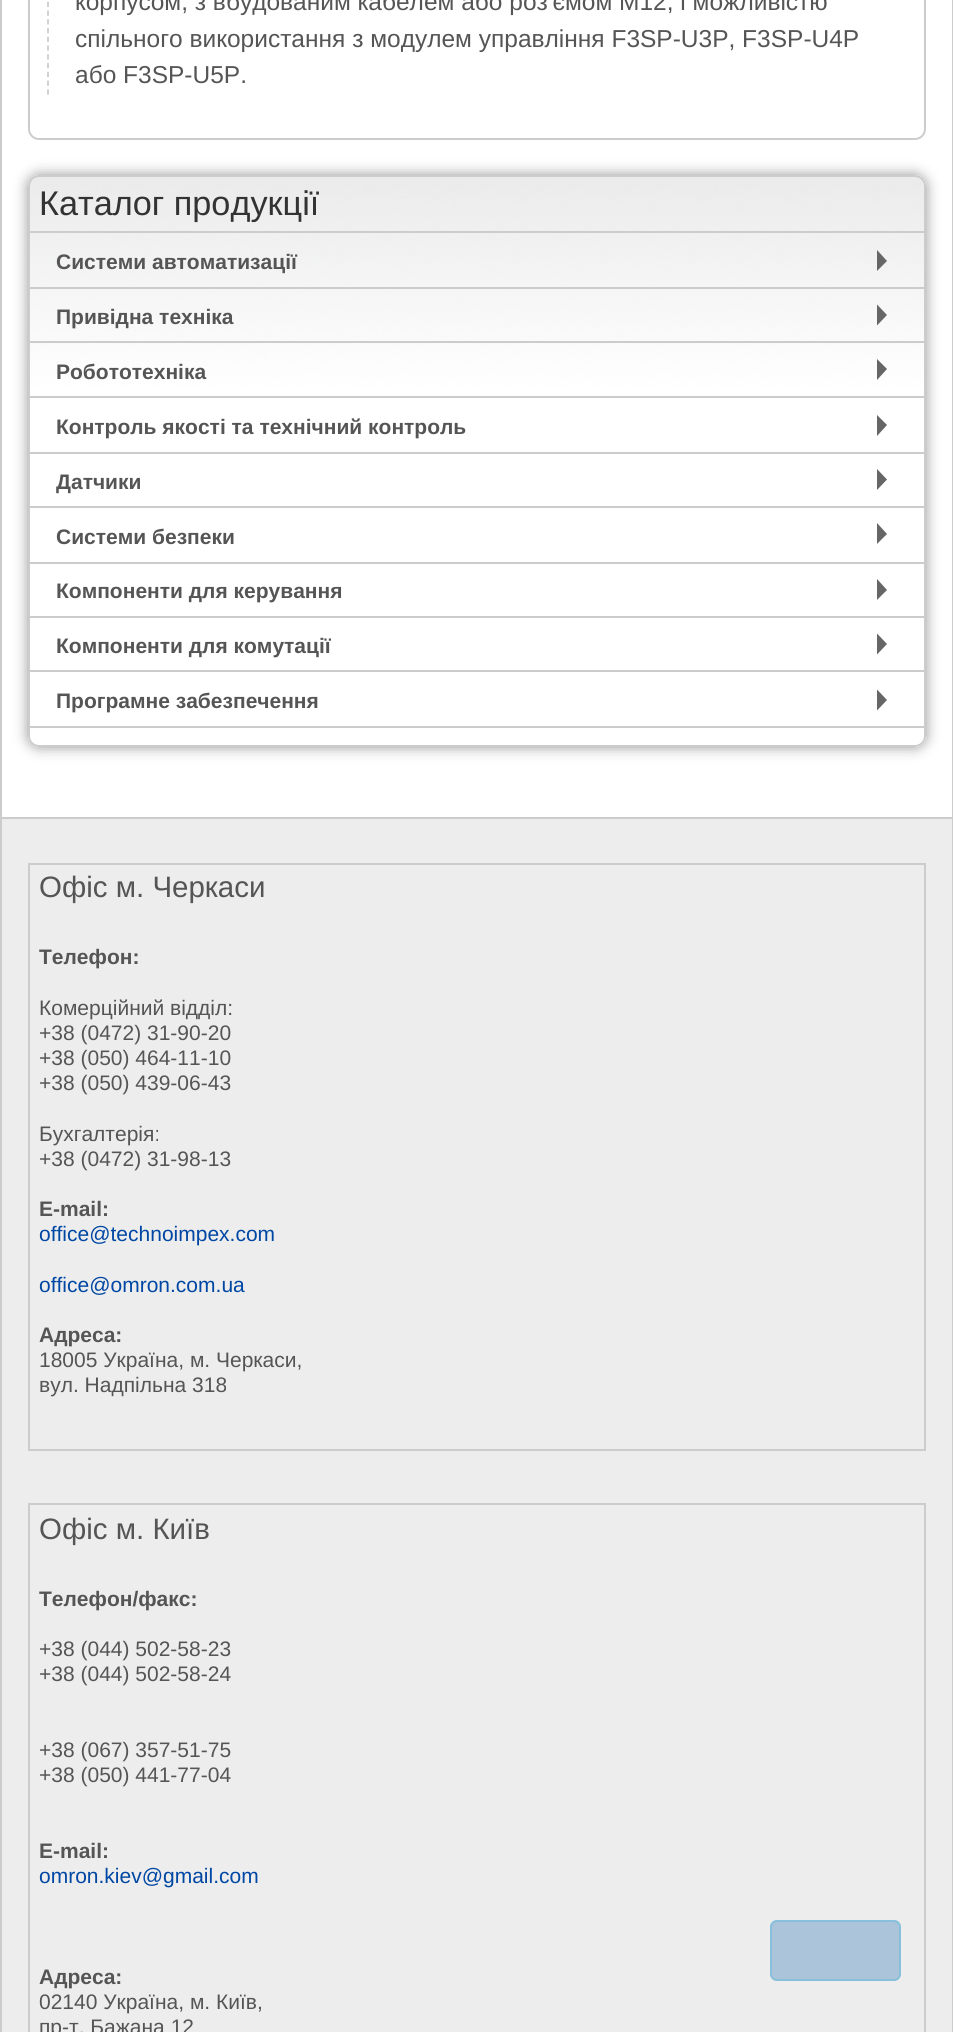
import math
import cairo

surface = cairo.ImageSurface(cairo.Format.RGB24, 953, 2032)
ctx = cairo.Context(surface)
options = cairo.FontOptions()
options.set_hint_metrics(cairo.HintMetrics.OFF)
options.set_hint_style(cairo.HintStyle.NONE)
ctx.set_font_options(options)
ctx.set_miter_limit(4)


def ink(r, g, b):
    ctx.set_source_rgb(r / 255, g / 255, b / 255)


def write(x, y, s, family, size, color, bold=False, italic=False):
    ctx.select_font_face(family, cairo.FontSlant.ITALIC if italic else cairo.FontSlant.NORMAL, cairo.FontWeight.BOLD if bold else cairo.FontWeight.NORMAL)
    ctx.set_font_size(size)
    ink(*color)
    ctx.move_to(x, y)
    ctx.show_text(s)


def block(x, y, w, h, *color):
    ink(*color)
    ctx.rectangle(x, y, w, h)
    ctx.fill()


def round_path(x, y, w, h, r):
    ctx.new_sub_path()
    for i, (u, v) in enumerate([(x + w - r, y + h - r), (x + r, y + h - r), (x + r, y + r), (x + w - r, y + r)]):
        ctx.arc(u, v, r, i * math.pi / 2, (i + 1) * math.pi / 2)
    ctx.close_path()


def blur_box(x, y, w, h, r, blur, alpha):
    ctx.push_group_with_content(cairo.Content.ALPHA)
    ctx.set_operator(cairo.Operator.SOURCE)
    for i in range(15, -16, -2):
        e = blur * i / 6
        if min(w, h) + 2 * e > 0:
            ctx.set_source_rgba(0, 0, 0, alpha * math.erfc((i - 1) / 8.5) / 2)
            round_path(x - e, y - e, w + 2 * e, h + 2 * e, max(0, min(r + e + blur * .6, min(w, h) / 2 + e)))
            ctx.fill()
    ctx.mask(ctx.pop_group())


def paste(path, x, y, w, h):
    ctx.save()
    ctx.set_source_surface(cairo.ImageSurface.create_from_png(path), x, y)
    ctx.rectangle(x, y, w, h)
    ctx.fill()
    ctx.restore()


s1 = dict(family="Liberation Sans", size=24.5, color=(85, 85, 85))
s2 = dict(family="Liberation Sans", size=34.25, color=(51, 51, 51))
s3 = dict(family="Liberation Sans", size=21, color=(85, 85, 85), bold=True)
s4 = dict(family="Liberation Sans", size=29.5, color=(85, 85, 85))
s5 = dict(family="Liberation Sans", size=21, color=(85, 85, 85))
s6 = dict(family="Liberation Sans", size=21, color=(0, 71, 164))

ink(255, 255, 255)
ctx.paint()
ink(204, 204, 204)
ctx.new_path()
ctx.move_to(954, -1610)
ctx.line_to(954, 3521)
ctx.line_to(952, 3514)
ctx.line_to(952, -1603)
ctx.close_path()
ctx.fill()
ctx.new_path()
ctx.move_to(0, 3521)
ctx.line_to(0, -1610)
ctx.line_to(2, -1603)
ctx.line_to(2, 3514)
ctx.close_path()
ctx.fill()
round_path(29, -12, 896, 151, 10)
ctx.stroke()
ctx.new_path()
ctx.move_to(48, -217)
ctx.line_to(48, 94.5)
ctx.set_line_width(1.8)
ctx.set_dash([5.25, 3.5])
ctx.stroke()
write(75, 10, "корпусом, з вбудованим кабелем або роз'ємом M12, і можливістю", **s1)
write(75, 47, "спільного використання з модулем управління F3SP-U3P, F3SP-U4P", **s1)
write(75, 83, "або F3SP-U5P.", **s1)
ctx.save()
ctx.set_fill_rule(cairo.FillRule.EVEN_ODD)
ctx.new_path()
ctx.move_to(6, 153)
ctx.line_to(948, 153)
ctx.line_to(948, 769)
ctx.line_to(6, 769)
ctx.close_path()
ctx.move_to(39, 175)
ctx.line_to(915, 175)
ctx.curve_to(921, 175, 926, 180, 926, 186)
ctx.line_to(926, 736)
ctx.curve_to(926, 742, 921, 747, 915, 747)
ctx.line_to(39, 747)
ctx.curve_to(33, 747, 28, 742, 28, 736)
ctx.line_to(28, 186)
ctx.curve_to(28, 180, 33, 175, 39, 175)
ctx.close_path()
ctx.clip()
ink(150, 150, 150)
blur_box(28, 175, 898, 572, 11, 7, 1)
ctx.restore()
paste("pic1.png", 28, 176, 898, 211)
round_path(29, 176, 896, 570, 10)
ink(204, 204, 204)
ctx.set_line_width(2)
ctx.set_dash([])
ctx.stroke()
block(30, 231, 894, 2, 204, 204, 204)
write(39, 215, "Каталог продукції", **s2)
block(30, 287, 894, 2, 204, 204, 204)
write(56, 269, "Системи автоматизації", **s3)
ink(102, 102, 102)
ctx.new_path()
ctx.move_to(877, 271)
ctx.line_to(877, 250)
ctx.line_to(887, 261)
ctx.close_path()
ctx.fill()
block(30, 341, 894, 2, 204, 204, 204)
write(56, 324, "Привідна техніка", **s3)
ink(102, 102, 102)
ctx.new_path()
ctx.move_to(877, 325.5)
ctx.line_to(877, 304.5)
ctx.line_to(887, 315)
ctx.close_path()
ctx.fill()
block(30, 396, 894, 2, 204, 204, 204)
write(56, 379, "Робототехніка", **s3)
ink(102, 102, 102)
ctx.new_path()
ctx.move_to(877, 380)
ctx.line_to(877, 359)
ctx.line_to(887, 369)
ctx.close_path()
ctx.fill()
block(30, 452, 894, 2, 204, 204, 204)
write(56, 434, "Контроль якості та технічний контроль", **s3)
ink(102, 102, 102)
ctx.new_path()
ctx.move_to(877, 436)
ctx.line_to(877, 415)
ctx.line_to(887, 425)
ctx.close_path()
ctx.fill()
block(30, 506, 894, 2, 204, 204, 204)
write(56, 489, "Датчики", **s3)
ink(102, 102, 102)
ctx.new_path()
ctx.move_to(877, 490)
ctx.line_to(877, 469)
ctx.line_to(887, 479.5)
ctx.close_path()
ctx.fill()
block(30, 562, 894, 2, 204, 204, 204)
write(56, 544, "Системи безпеки", **s3)
ink(102, 102, 102)
ctx.new_path()
ctx.move_to(877, 544)
ctx.line_to(877, 523)
ctx.line_to(887, 534)
ctx.close_path()
ctx.fill()
block(30, 616, 894, 2, 204, 204, 204)
write(56, 598, "Компоненти для керування", **s3)
ink(102, 102, 102)
ctx.new_path()
ctx.move_to(877, 600)
ctx.line_to(877, 579)
ctx.line_to(887, 590)
ctx.close_path()
ctx.fill()
block(30, 670, 894, 2, 204, 204, 204)
write(56, 653, "Компоненти для комутації", **s3)
ink(102, 102, 102)
ctx.new_path()
ctx.move_to(877, 654.5)
ctx.line_to(877, 633.5)
ctx.line_to(887, 644)
ctx.close_path()
ctx.fill()
block(30, 726, 894, 2, 204, 204, 204)
write(56, 708, "Програмне забезпечення", **s3)
ink(102, 102, 102)
ctx.new_path()
ctx.move_to(877, 710.5)
ctx.line_to(877, 689.5)
ctx.line_to(887, 700)
ctx.close_path()
ctx.fill()
block(2, 819, 950, 1213, 237, 237, 237)
block(2, 817, 950, 2, 204, 204, 204)
ctx.rectangle(29, 864, 896, 586)
ctx.stroke()
write(39, 897, "Офіс м. Черкаси", **s4)
write(39, 964, "Телефон:", **s3)
write(39, 1015, "Комерційний відділ:", **s5)
write(39, 1040, "+38 (0472) 31-90-20", **s5)
write(39, 1065, "+38 (050) 464-11-10", **s5)
write(39, 1090, "+38 (050) 439-06-43", **s5)
write(39, 1141, "Бухгалтерія:", **s5)
write(39, 1166, "+38 (0472) 31-98-13", **s5)
write(39, 1216, "E-mail:", **s3)
write(39, 1241, "office@technoimpex.com", **s6)
write(39, 1292, "office@omron.com.ua", **s6)
write(39, 1342, "Адреса:", **s3)
write(39, 1367, "18005 Україна, м. Черкаси,", **s5)
write(39, 1392, "вул. Надпільна 318", **s5)
ctx.rectangle(29, 1504, 896, 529)
ink(204, 204, 204)
ctx.stroke()
write(39, 1539, "Офіс м. Київ", **s4)
write(39, 1606, "Телефон/факс:", **s3)
write(39, 1656, "+38 (044) 502-58-23", **s5)
write(39, 1681, "+38 (044) 502-58-24", **s5)
write(39, 1757, "+38 (067) 357-51-75", **s5)
write(39, 1782, "+38 (050) 441-77-04", **s5)
write(39, 1858, "E-mail:", **s3)
write(39, 1883, "omron.kiev@gmail.com", **s6)
write(39, 1984, "Адреса:", **s3)
write(39, 2009, "02140 Україна, м. Київ,", **s5)
write(39, 2034, "пр-т. Бажана 12", **s5)
ink(171, 196, 218)
round_path(770, 1920, 131, 61, 7)
ctx.fill()
round_path(771, 1921, 129, 59, 6)
ctx.set_source_rgba(0.275, 0.722, 0.855, 0.35)
ctx.stroke()
surface.write_to_png("screenshot.png")
